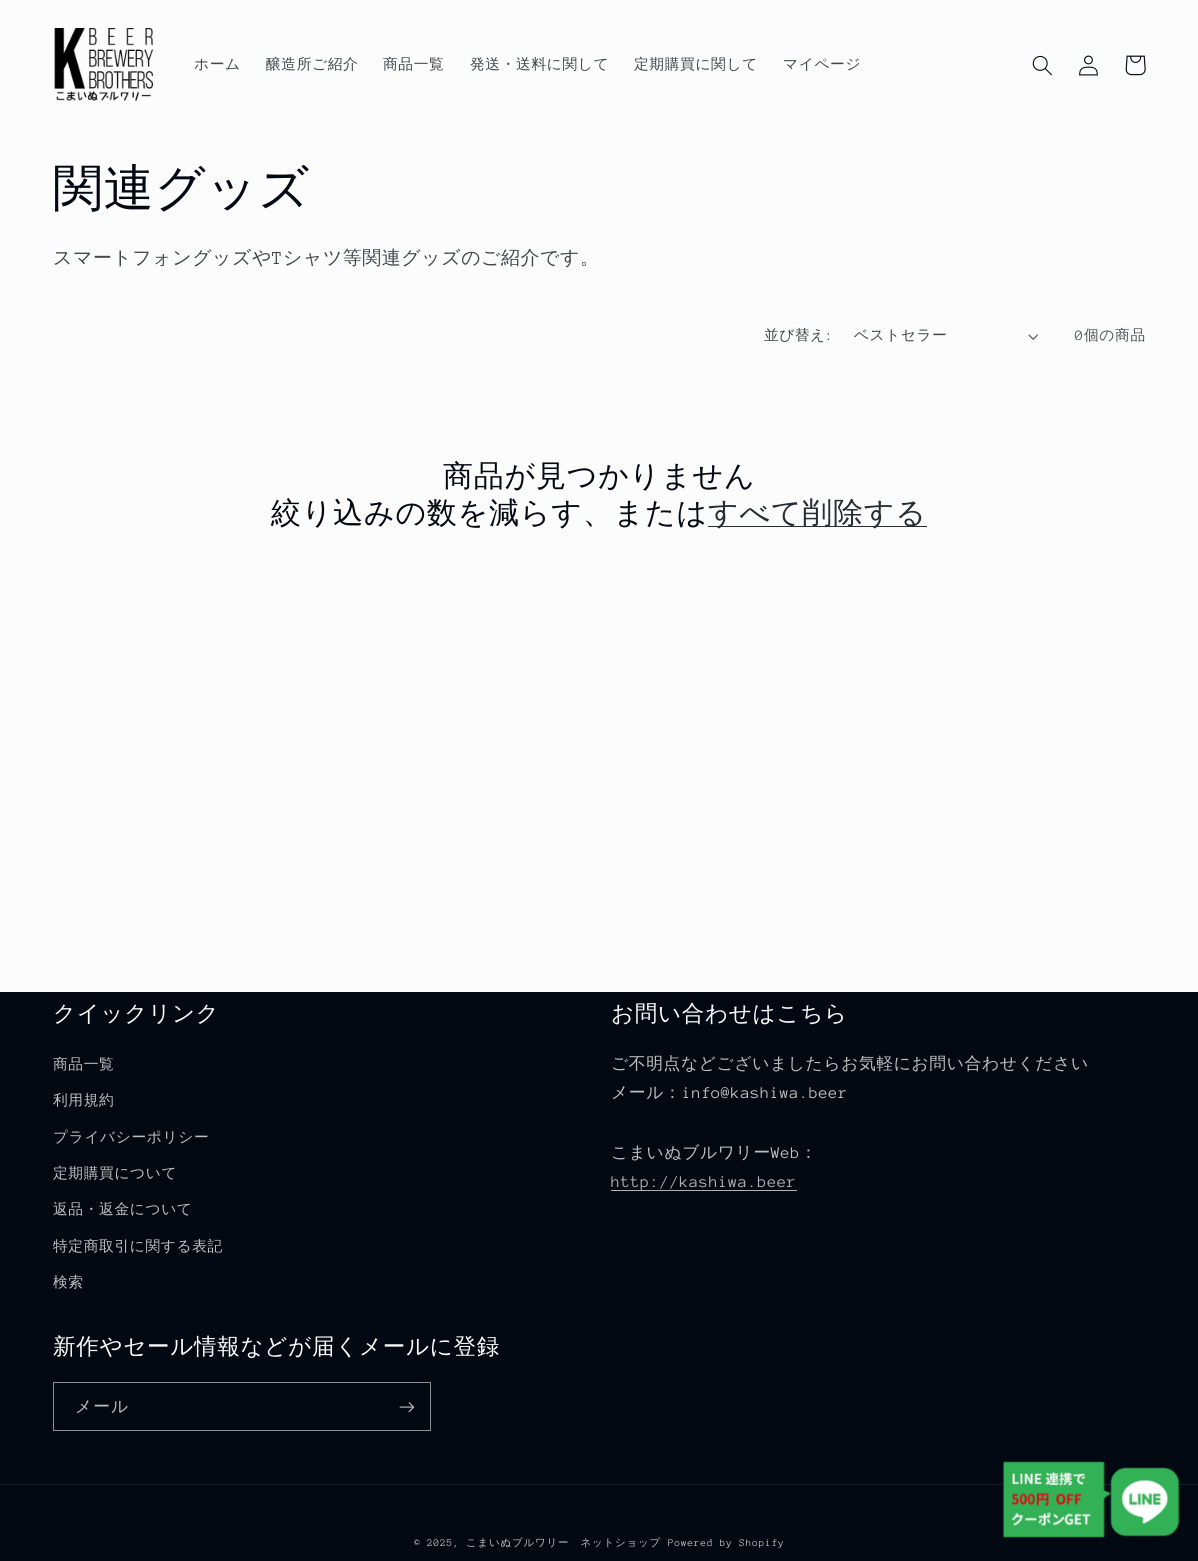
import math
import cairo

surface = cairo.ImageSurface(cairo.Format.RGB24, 1198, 1561)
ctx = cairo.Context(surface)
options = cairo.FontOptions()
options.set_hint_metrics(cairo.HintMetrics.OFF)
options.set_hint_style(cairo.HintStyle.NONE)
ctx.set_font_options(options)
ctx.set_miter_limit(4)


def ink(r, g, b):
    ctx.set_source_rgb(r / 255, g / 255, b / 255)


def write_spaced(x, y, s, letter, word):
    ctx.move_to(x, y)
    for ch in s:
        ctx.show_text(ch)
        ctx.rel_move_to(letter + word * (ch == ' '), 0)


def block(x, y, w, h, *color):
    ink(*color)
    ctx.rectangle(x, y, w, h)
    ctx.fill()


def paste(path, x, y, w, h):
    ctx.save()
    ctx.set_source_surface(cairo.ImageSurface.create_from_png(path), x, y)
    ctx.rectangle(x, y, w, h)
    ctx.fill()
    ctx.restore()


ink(252, 252, 252)
ctx.paint()
paste("pic1.png", 54, 28, 99, 74)
ctx.select_font_face("WenQuanYi Zen Hei Medium")
ctx.set_font_size(14.75)
ink(65, 70, 77)
write_spaced(194, 69, "ホーム", 0.6, 0)
write_spaced(266, 69, "醸造所ご紹介", 0.6, 0)
write_spaced(383, 69, "商品一覧", 0.6, 0)
write_spaced(470, 69, "発送・送料に関して", 0.6, 0)
write_spaced(634, 69, "定期購買に関して", 0.6, 0)
write_spaced(783, 69, "マイページ", 0.6, 0)
paste("pic2.png", 1032, 55, 20, 21)
paste("pic3.png", 1079, 55, 19, 21)
paste("pic4.png", 1125, 55, 21, 21)
ctx.set_font_size(50)
ink(2, 9, 18)
write_spaced(53, 205, "関連グッズ", 0.75, 0)
ctx.set_font_size(18.9)
ink(65, 70, 77)
write_spaced(53, 264, "スマートフォングッズや", 0.6, 0)
ctx.select_font_face("Anonymous Pro")
write_spaced(272, 264, "T", 0.6, 0)
ctx.select_font_face("WenQuanYi Zen Hei Medium")
write_spaced(283, 264, "シャツ等関連グッズのご紹介です。", 0.6, 0)
ctx.set_font_size(14.75)
write_spaced(764, 340, "並び替え", 0.5, 0)
ctx.select_font_face("Anonymous Pro")
write_spaced(825, 340, ":", 0.5, 0)
ctx.select_font_face("WenQuanYi Zen Hei Medium")
write_spaced(854, 340, "ベストセラー", 0.5, 0)
paste("pic5.png", 1028, 334, 10, 6)
ctx.select_font_face("Anonymous Pro")
ink(77, 82, 88)
write_spaced(1075, 340, "0", 0.6, 0)
ctx.select_font_face("WenQuanYi Zen Hei Medium")
write_spaced(1084, 340, "個の商品", 0.6, 0)
ctx.set_font_size(30)
ink(2, 9, 18)
write_spaced(443, 486, "商品が見つかりません", 0.75, 0)
write_spaced(271, 523, "絞り込みの数を減らす、または", 0.75, 0)
block(708, 526, 219, 1, 40, 45, 53)
ink(39, 45, 52)
write_spaced(708, 523, "すべて削除する", 0.75, 0)
block(0, 992, 1198, 569, 2, 9, 18)
ctx.set_font_size(22.5)
ink(252, 252, 252)
write_spaced(53, 1021, "クイックリンク", 0.75, 0)
ctx.set_font_size(14.75)
ink(190, 191, 194)
write_spaced(53, 1069, "商品一覧", 0.6, 0)
write_spaced(53, 1105, "利用規約", 0.6, 0)
write_spaced(53, 1142, "プライバシーポリシー", 0.6, 0)
write_spaced(53, 1178, "定期購買について", 0.6, 0)
write_spaced(53, 1214, "返品・返金について", 0.6, 0)
write_spaced(53, 1251, "特定商取引に関する表記", 0.6, 0)
write_spaced(53, 1287, "検索", 0.6, 0)
ctx.set_font_size(22.5)
ink(252, 252, 252)
write_spaced(611, 1021, "お問い合わせはこちら", 0.75, 0)
ctx.set_font_size(16.8)
ink(190, 191, 194)
write_spaced(611, 1069, "ご不明点などございましたらお気軽にお問い合わせください", 0.6, 0)
write_spaced(611, 1098, "メール：", 0.6, 0)
ctx.select_font_face("Anonymous Pro")
write_spaced(682, 1098, "info@kashiwa.beer", 0.6, 0)
ctx.select_font_face("WenQuanYi Zen Hei Medium")
write_spaced(611, 1158, "こまいぬブルワリー", 0.6, 0)
ctx.select_font_face("Anonymous Pro")
write_spaced(771, 1158, "Web", 0.6, 0)
ctx.select_font_face("WenQuanYi Zen Hei Medium")
write_spaced(800, 1158, "：", 0.6, 0)
block(611, 1190, 186, 1, 177, 179, 182)
ctx.select_font_face("Anonymous Pro")
write_spaced(611, 1187, "http://kashiwa.beer", 0.6, 0)
ctx.select_font_face("WenQuanYi Zen Hei Medium")
ctx.set_font_size(22.5)
ink(252, 252, 252)
write_spaced(53, 1354, "新作やセール情報などが届くメールに登録", 0.75, 0)
ctx.rectangle(53.5, 1382.5, 377, 48)
ink(140, 143, 147)
ctx.set_line_width(1)
ctx.stroke()
ctx.set_font_size(16.8)
ink(190, 191, 194)
write_spaced(75, 1412, "メール", 1, 0)
paste("pic6.png", 399, 1402, 15, 11)
block(0, 1484, 1198, 1, 22, 28, 37)
ctx.select_font_face("Anonymous Pro")
ctx.set_font_size(10.5)
ink(190, 191, 194)
write_spaced(414, 1546, "© 2025,", 0.75, 0)
ctx.select_font_face("WenQuanYi Zen Hei Medium")
write_spaced(466, 1546, "こまいぬブルワリー　ネットショップ", 0.75, 0)
ctx.select_font_face("Anonymous Pro")
write_spaced(668, 1546, "Powered by Shopify", 0.75, 0)
paste("pic7.png", 1003, 1461, 177, 77)
surface.write_to_png("screenshot.png")
